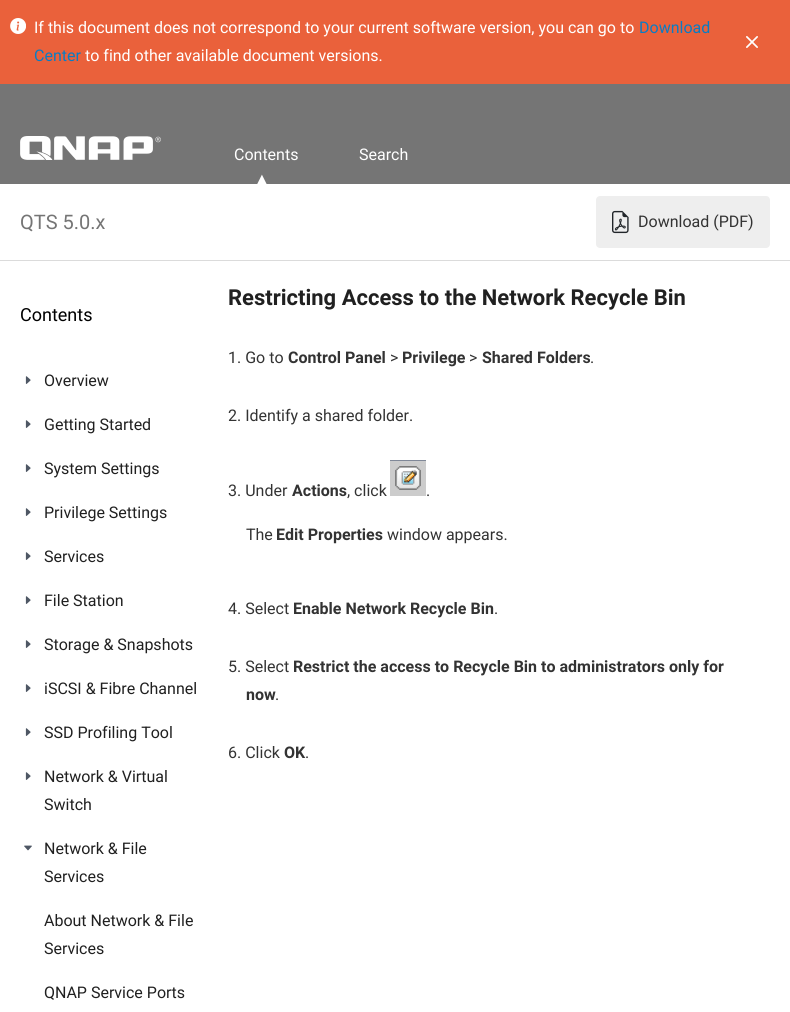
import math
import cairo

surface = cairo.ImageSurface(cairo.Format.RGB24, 790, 1012)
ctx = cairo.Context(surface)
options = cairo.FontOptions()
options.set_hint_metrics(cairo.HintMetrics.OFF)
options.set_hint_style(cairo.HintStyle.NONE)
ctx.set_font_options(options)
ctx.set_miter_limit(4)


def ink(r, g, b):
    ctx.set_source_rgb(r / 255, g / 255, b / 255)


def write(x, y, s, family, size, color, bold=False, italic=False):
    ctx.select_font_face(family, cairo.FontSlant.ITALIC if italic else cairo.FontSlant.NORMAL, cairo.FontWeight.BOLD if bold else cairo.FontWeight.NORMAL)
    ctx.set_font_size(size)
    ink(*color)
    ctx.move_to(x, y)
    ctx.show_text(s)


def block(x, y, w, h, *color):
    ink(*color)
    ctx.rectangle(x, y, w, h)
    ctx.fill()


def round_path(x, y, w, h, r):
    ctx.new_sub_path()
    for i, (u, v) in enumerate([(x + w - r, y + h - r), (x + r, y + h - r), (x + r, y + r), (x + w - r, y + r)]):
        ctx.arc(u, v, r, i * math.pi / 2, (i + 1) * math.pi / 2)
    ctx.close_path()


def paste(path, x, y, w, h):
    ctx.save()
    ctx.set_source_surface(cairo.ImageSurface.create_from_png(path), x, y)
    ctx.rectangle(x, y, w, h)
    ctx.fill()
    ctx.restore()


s1 = dict(family="Roboto", size=16, color=(255, 255, 255))
s2 = dict(family="Roboto", size=16, color=(9, 124, 196))
s3 = dict(family="Liberation Sans", size=16, color=(255, 255, 255))
s4 = dict(family="Roboto", size=20, color=(117, 117, 117))
s5 = dict(family="Roboto", size=16, color=(51, 51, 51))
s6 = dict(family="Roboto", size=18, color=(0, 0, 0))
s7 = dict(family="Roboto", size=16, color=(32, 32, 32))
s8 = dict(family="Roboto", size=22, color=(32, 32, 32), bold=True)
s9 = dict(family="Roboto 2", size=16, color=(51, 51, 51), bold=True)

ink(255, 255, 255)
ctx.paint()
block(0, 84, 790, 100, 117, 117, 117)
block(0, 0, 790, 84, 234, 97, 59)
paste("pic1.png", 10, 18, 16, 16)
write(34, 33, "If this document does not correspond to your current software version, you can go to", **s1)
write(639, 33, "Download", **s2)
write(34, 61, "Center", **s2)
write(85, 61, "to find other available document versions.", **s1)
paste("pic2.png", 746, 36, 12, 12)
paste("pic3.png", 20, 136, 141, 24)
write(234, 160, "Contents", **s1)
write(254, 184, "▲", **s3)
write(359, 160, "Search", **s1)
block(0, 260, 790, 1, 219, 219, 219)
write(20, 229, "QTS 5.0.x", **s4)
ink(238, 238, 238)
round_path(596, 196, 174, 52, 4)
ctx.fill()
paste("pic4.png", 612, 210, 17, 24)
write(638, 227, "Download (PDF)", **s5)
write(20, 321, "Contents", **s6)
paste("pic5.png", 25, 376, 6, 8)
write(44, 386, "Overview", **s7)
paste("pic5.png", 25, 420, 6, 8)
write(44, 430, "Getting Started", **s7)
paste("pic5.png", 25, 464, 6, 8)
write(44, 474, "System Settings", **s7)
paste("pic5.png", 25, 508, 6, 8)
write(44, 518, "Privilege Settings", **s7)
paste("pic5.png", 25, 552, 6, 8)
write(44, 562, "Services", **s7)
paste("pic5.png", 25, 596, 6, 8)
write(44, 606, "File Station", **s7)
paste("pic5.png", 25, 640, 6, 8)
write(44, 650, "Storage & Snapshots", **s7)
paste("pic5.png", 25, 684, 6, 8)
write(44, 694, "iSCSI & Fibre Channel", **s7)
paste("pic5.png", 25, 728, 6, 8)
write(44, 738, "SSD Profiling Tool", **s7)
paste("pic5.png", 25, 772, 6, 8)
write(44, 782, "Network & Virtual", **s7)
write(44, 810, "Switch", **s7)
paste("pic6.png", 24, 845, 8, 6)
write(44, 854, "Network & File", **s7)
write(44, 882, "Services", **s7)
write(44, 926, "About Network & File", **s7)
write(44, 954, "Services", **s7)
write(44, 998, "QNAP Service Ports", **s7)
write(228, 305, "Restricting Access to the Network Recycle Bin", **s8)
write(228, 363, "1. Go to", **s5)
write(288, 363, "Control Panel", **s9)
write(390, 363, ">", **s5)
write(402, 363, "Privilege", **s9)
write(469, 363, ">", **s5)
write(482, 363, "Shared Folders", **s9)
write(590, 363, ".", **s5)
write(228, 421, "2. Identify a shared folder.", **s5)
write(228, 496, "3. Under", **s5)
write(292, 496, "Actions", **s9)
write(347, 496, ", click", **s5)
paste("pic7.png", 390, 460, 36, 36)
write(426, 496, ".", **s5)
write(246, 540, "The", **s5)
write(276, 540, "Edit Properties", **s9)
write(387, 540, "window appears.", **s5)
write(228, 614, "4. Select", **s5)
write(293, 614, "Enable Network Recycle Bin", **s9)
write(494, 614, ".", **s5)
write(228, 672, "5. Select", **s5)
write(293, 672, "Restrict the access to Recycle Bin to administrators only for", **s9)
write(246, 700, "now", **s9)
write(275, 700, ".", **s5)
write(228, 758, "6. Click", **s5)
write(284, 758, "OK", **s9)
write(305, 758, ".", **s5)
surface.write_to_png("screenshot.png")
